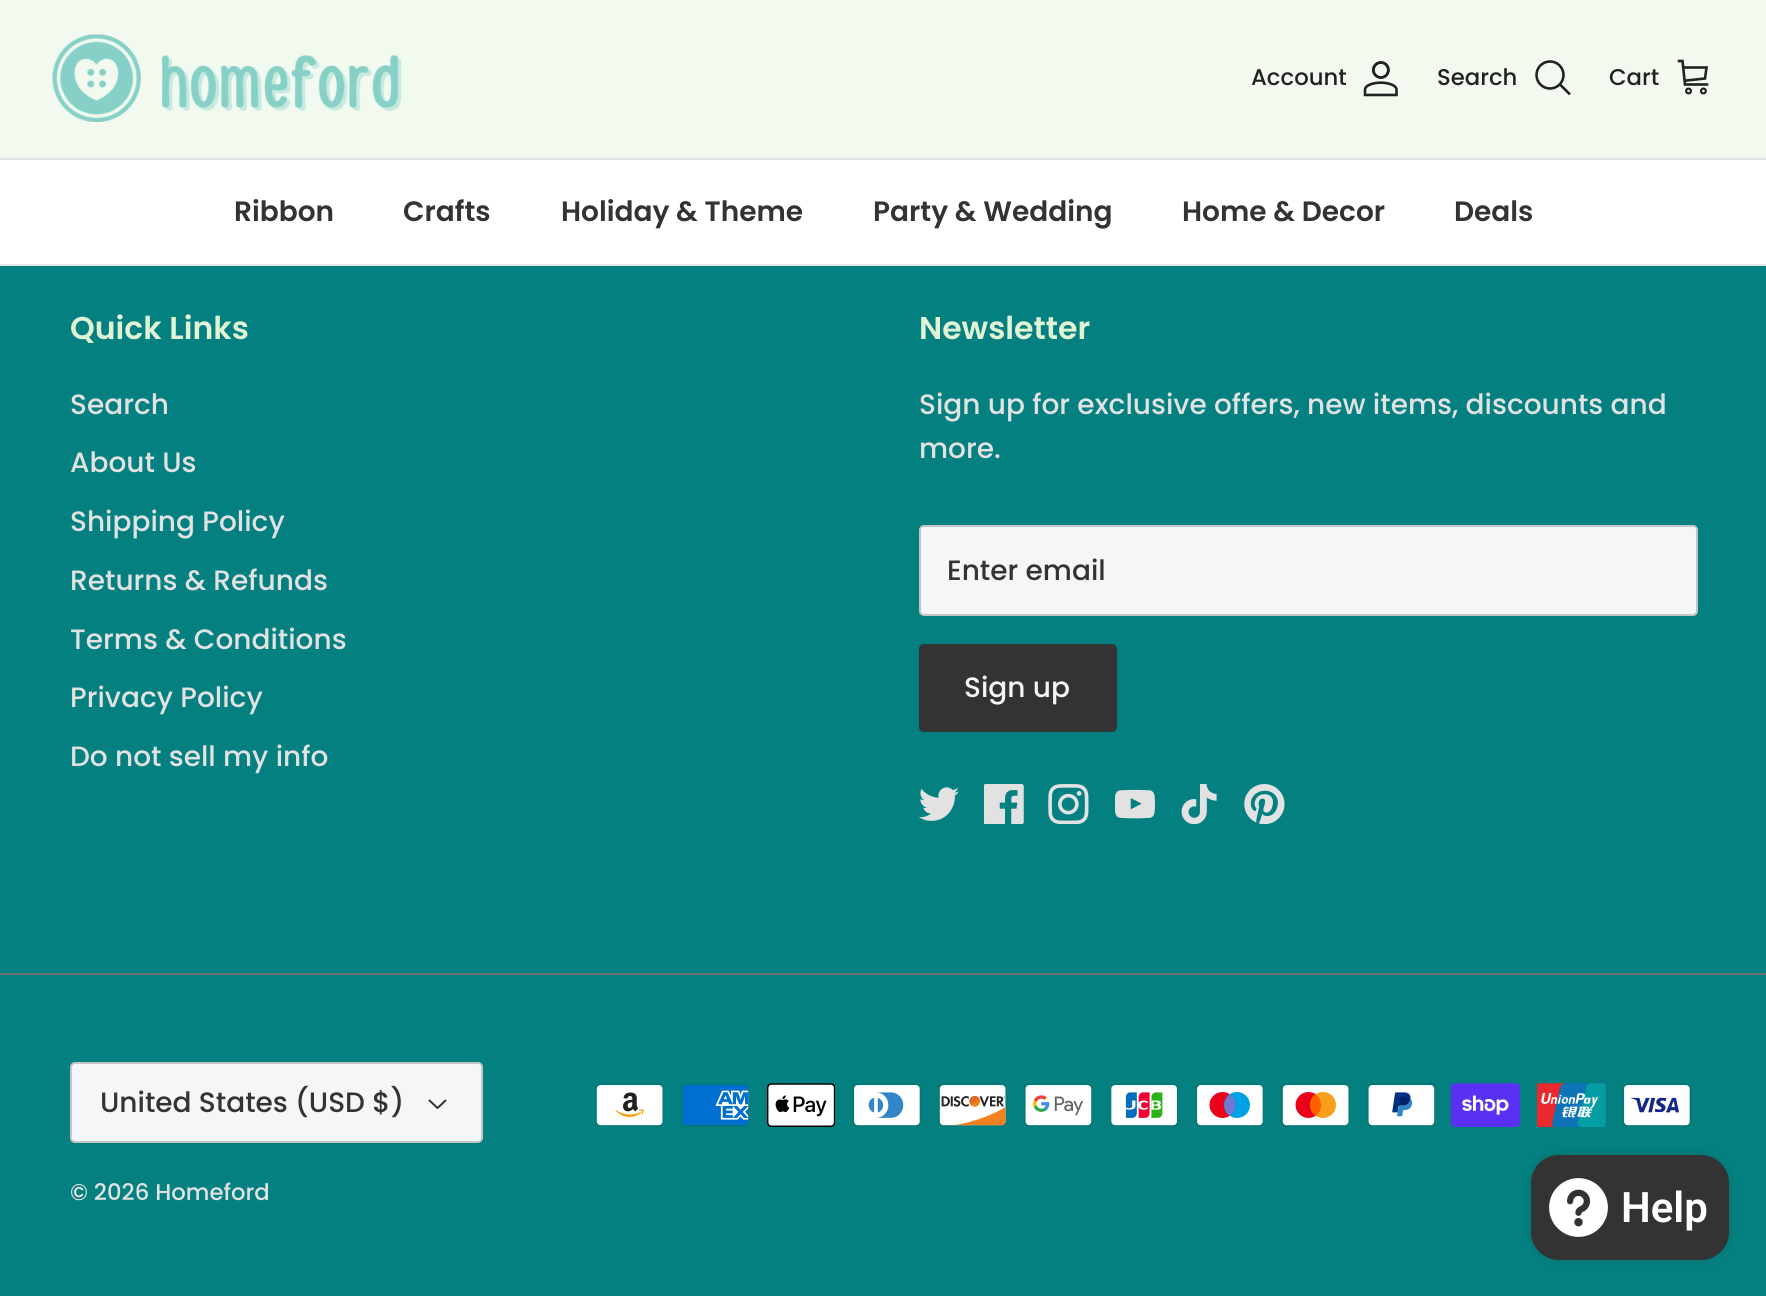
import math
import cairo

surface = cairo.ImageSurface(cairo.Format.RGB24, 1766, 1296)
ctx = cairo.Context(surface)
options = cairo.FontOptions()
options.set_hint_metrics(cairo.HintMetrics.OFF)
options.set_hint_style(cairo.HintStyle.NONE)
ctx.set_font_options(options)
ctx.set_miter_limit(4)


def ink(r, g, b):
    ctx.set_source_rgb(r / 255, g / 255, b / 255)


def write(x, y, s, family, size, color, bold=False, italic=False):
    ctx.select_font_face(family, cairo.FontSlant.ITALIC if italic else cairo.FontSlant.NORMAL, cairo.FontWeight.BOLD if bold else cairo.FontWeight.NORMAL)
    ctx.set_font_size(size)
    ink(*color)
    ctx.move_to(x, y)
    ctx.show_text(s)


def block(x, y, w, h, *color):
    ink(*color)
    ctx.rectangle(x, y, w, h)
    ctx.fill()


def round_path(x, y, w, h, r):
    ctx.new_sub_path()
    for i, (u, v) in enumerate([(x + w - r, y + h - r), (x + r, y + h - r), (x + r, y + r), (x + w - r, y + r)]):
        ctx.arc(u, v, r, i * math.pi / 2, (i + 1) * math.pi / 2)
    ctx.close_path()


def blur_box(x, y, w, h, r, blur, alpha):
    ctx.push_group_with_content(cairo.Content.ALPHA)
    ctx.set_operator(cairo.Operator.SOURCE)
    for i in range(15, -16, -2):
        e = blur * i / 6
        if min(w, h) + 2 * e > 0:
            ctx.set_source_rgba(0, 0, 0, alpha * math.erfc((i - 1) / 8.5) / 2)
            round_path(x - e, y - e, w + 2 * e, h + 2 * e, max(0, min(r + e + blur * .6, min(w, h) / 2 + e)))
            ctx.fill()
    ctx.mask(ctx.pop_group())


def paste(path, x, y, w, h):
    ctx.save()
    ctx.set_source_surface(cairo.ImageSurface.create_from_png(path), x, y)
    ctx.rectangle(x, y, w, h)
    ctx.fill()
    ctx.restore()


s1 = dict(family="Poppins Medium", size=22.75, color=(32, 34, 35))
s2 = dict(family="Poppins SemiBold", size=28, color=(51, 51, 51))
s3 = dict(family="Poppins SemiBold", size=31.5, color=(224, 244, 213))
s4 = dict(family="Poppins Medium", size=28, color=(226, 226, 226))
s5 = dict(family="Poppins Medium", size=28, color=(51, 51, 51))
s6 = dict(family="Poppins Medium", size=28, color=(246, 246, 246))
s7 = dict(family="Poppins Medium", size=22.75, color=(226, 226, 226))
s8 = dict(family="Roboto SemiBold", size=42, color=(255, 255, 255))

ink(4, 128, 128)
ctx.paint()
block(0, 0, 1766, 158, 242, 250, 240)
block(0, 158, 1766, 2, 226, 226, 226)
paste("pic1.png", 52, 34, 350, 88)
write(1251, 85, "Account", **s1)
paste("pic2.png", 1363, 61, 35, 36)
write(1437, 85, "Search", **s1)
ctx.new_path()
ctx.arc(1550, 75, 13.5, 0, 2 * math.pi)
ctx.set_line_width(2.6)
ctx.stroke()
ctx.new_path()
ctx.move_to(1561, 85.5)
ctx.line_to(1569, 93.5)
ctx.set_line_cap(cairo.LineCap.SQUARE)
ctx.stroke()
write(1609, 85, "Cart", **s1)
ctx.new_path()
ctx.move_to(1679, 61)
ctx.line_to(1682.5, 61)
ctx.line_to(1685, 84.5)
ctx.line_to(1707, 84.5)
ctx.move_to(1684, 67.5)
ctx.line_to(1706.5, 67.5)
ctx.line_to(1705, 78.5)
ctx.line_to(1686.5, 80.5)
ctx.stroke()
ctx.arc(1688.5, 91, 2.4, 0, 2 * math.pi)
ctx.set_line_width(2.2)
ctx.set_line_cap(cairo.LineCap.BUTT)
ctx.stroke()
ctx.arc(1703.4, 91, 2.4, 0, 2 * math.pi)
ctx.stroke()
block(0, 264, 1766, 2, 226, 226, 226)
block(0, 160, 1766, 104, 255, 255, 255)
write(234, 221, "Ribbon", **s2)
write(403, 221, "Crafts", **s2)
write(561, 221, "Holiday & Theme", **s2)
write(873, 221, "Party & Wedding", **s2)
write(1182, 221, "Home & Decor", **s2)
write(1454, 221, "Deals", **s2)
write(70, 339, "Quick Links", **s3)
write(70, 414, "Search", **s4)
write(70, 472, "About Us", **s4)
write(70, 531, "Shipping Policy", **s4)
write(70, 590, "Returns & Refunds", **s4)
write(70, 649, "Terms & Conditions", **s4)
write(70, 707, "Privacy Policy", **s4)
write(70, 766, "Do not sell my info", **s4)
write(919, 339, "Newsletter", **s3)
write(919, 414, "Sign up for exclusive offers, new items, discounts and", **s4)
write(919, 458, "more.", **s4)
ink(244, 246, 248)
round_path(920, 526, 777, 89, 4)
ctx.fill_preserve()
ink(196, 197, 199)
ctx.set_line_width(2)
ctx.stroke()
write(947, 580, "Enter email", **s5)
round_path(920, 645, 196, 86, 4)
ctx.fill_preserve()
ctx.stroke()
write(964, 697, "Sign up", **s6)
paste("pic3.png", 919, 787, 40, 34)
paste("pic4.png", 984, 784, 40, 40)
paste("pic5.png", 1048, 784, 41, 40)
paste("pic6.png", 1115, 789, 40, 30)
paste("pic7.png", 1181, 784, 36, 40)
paste("pic8.png", 1244, 784, 41, 40)
block(0, 973, 1766, 2, 109, 113, 117)
ink(244, 246, 248)
round_path(71, 1063, 411, 79, 4)
ctx.fill_preserve()
ink(196, 197, 199)
ctx.stroke()
write(100, 1112, "United States (USD $)", **s5)
ctx.new_path()
ctx.move_to(429.5, 1100.5)
ctx.line_to(437.5, 1108)
ctx.line_to(445.5, 1100.5)
ctx.set_line_cap(cairo.LineCap.ROUND)
ctx.set_line_join(cairo.LineJoin.ROUND)
ctx.stroke()
write(70, 1200, "© 2026 Homeford", **s7)
paste("pic9.png", 595, 1083, 68, 44)
paste("pic10.png", 681, 1083, 68, 44)
paste("pic11.png", 767, 1083, 68, 44)
paste("pic12.png", 852, 1083, 69, 44)
paste("pic13.png", 938, 1083, 68, 44)
paste("pic14.png", 1024, 1083, 68, 44)
paste("pic15.png", 1110, 1083, 68, 44)
paste("pic16.png", 1195, 1083, 69, 44)
paste("pic17.png", 1281, 1083, 68, 44)
paste("pic18.png", 1367, 1083, 68, 44)
paste("pic19.png", 1451, 1083, 69, 44)
paste("pic20.png", 1537, 1083, 69, 44)
paste("pic21.png", 1622, 1083, 70, 44)
ink(0, 0, 0)
blur_box(1531, 1155, 198, 105, 28, 4.5, 0.15)
ink(51, 51, 51)
round_path(1531, 1155, 198, 105, 28)
ctx.fill()
paste("pic22.png", 1549, 1178, 59, 59)
write(1621, 1222, "Help", **s8)
surface.write_to_png("screenshot.png")
